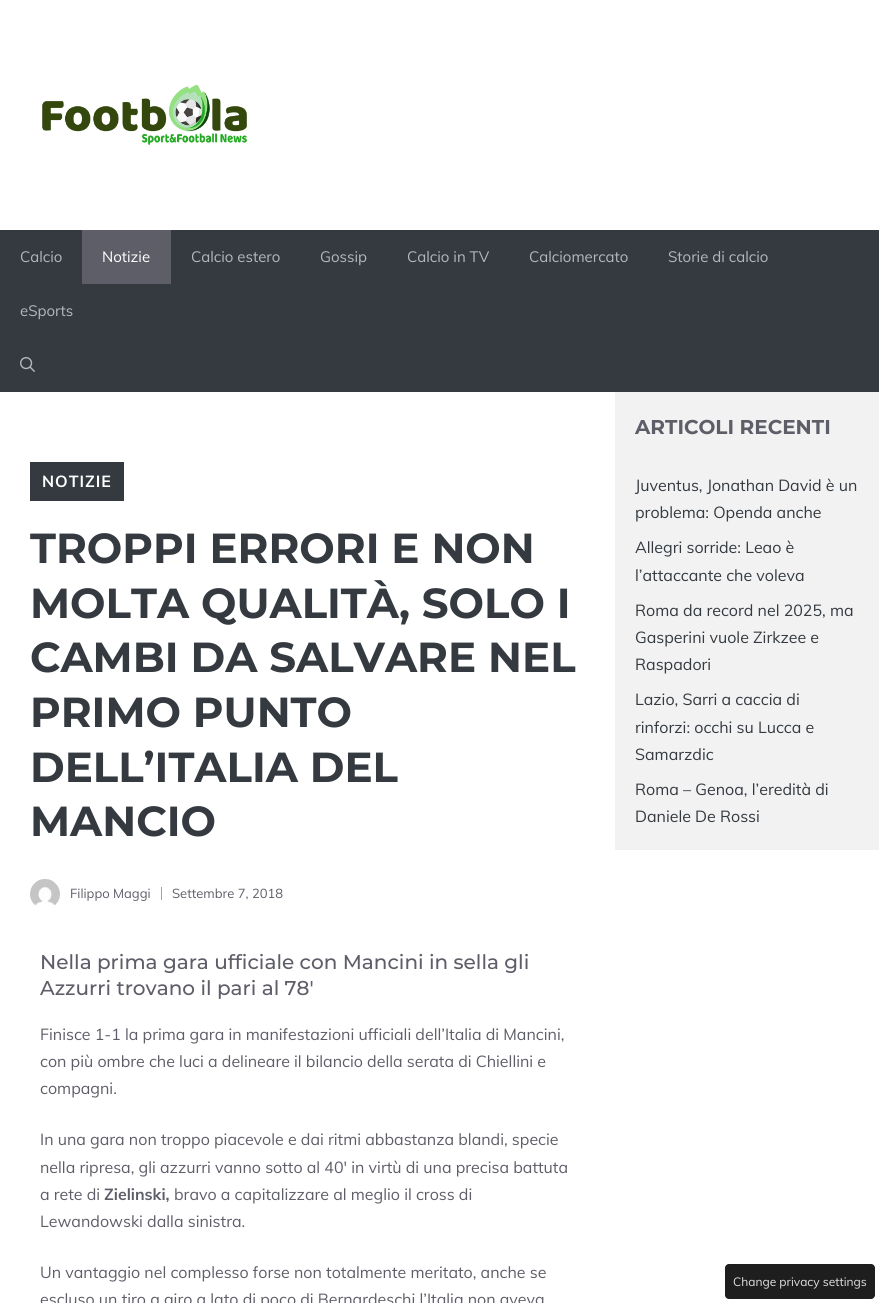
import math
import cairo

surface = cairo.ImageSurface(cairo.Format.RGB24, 879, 1303)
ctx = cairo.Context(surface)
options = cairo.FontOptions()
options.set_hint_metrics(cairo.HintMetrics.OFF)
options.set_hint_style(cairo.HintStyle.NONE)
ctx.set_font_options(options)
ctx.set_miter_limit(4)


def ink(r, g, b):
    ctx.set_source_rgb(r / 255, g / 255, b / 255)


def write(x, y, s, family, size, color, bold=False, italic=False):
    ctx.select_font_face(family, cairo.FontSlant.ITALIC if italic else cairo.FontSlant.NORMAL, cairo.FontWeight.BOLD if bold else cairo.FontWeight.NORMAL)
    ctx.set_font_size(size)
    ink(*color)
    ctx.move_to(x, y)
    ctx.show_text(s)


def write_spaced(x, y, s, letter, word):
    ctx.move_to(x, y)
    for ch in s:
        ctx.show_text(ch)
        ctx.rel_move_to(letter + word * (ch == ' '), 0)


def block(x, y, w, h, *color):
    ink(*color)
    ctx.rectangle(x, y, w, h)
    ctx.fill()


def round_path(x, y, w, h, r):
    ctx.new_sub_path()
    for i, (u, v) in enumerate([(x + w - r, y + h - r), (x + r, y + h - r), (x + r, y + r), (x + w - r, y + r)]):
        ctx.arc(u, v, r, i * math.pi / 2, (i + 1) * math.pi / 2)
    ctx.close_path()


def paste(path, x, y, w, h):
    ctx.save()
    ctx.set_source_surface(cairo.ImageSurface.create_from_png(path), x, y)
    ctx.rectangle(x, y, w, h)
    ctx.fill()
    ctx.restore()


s1 = dict(family="Muli", size=15, color=(181, 183, 191))
s2 = dict(family="Muli", size=15, color=(255, 255, 255))
s3 = dict(family="Montserrat", size=42, color=(52, 58, 64), bold=True)
s4 = dict(family="Muli", size=13, color=(94, 94, 105))
s5 = dict(family="Montserrat Medium", size=20, color=(94, 94, 105))
s6 = dict(family="Muli", size=16, color=(94, 94, 105))
s7 = dict(family="Muli", size=16, color=(94, 94, 105), bold=True)
s8 = dict(family="Montserrat", size=20, color=(94, 94, 105), bold=True)
s9 = dict(family="Muli", size=16, color=(52, 58, 64))
s10 = dict(family="Muli", size=12, color=(227, 225, 225))

ink(255, 255, 255)
ctx.paint()
paste("pic1.png", 42, 84, 205, 61)
block(0, 230, 879, 162, 52, 58, 64)
write(20, 262, "Calcio", **s1)
block(82, 230, 89, 54, 94, 94, 105)
write(102, 262, "Notizie", **s2)
write(191, 262, "Calcio estero", **s1)
write(320, 262, "Gossip", **s1)
write(407, 262, "Calcio in TV", **s1)
write(529, 262, "Calciomercato", **s1)
write(668, 262, "Storie di calcio", **s1)
write(20, 316, "eSports", **s1)
paste("pic2.png", 20, 357, 15, 15)
block(30, 462, 94, 39, 52, 58, 64)
ctx.select_font_face("Muli", cairo.FontSlant.NORMAL, cairo.FontWeight.BOLD)
ctx.set_font_size(16)
ink(255, 255, 255)
write_spaced(42, 487, "NOTIZIE", 1, 0)
write(30, 563, "TROPPI ERRORI E NON", **s3)
write(30, 618, "MOLTA QUALITÀ, SOLO I", **s3)
write(30, 672, "CAMBI DA SALVARE NEL", **s3)
write(30, 727, "PRIMO PUNTO", **s3)
write(30, 782, "DELL’ITALIA DEL", **s3)
write(30, 836, "MANCIO", **s3)
paste("pic3.png", 30, 879, 30, 28)
write(70, 898, "Filippo Maggi", **s4)
block(161, 887, 1, 13, 160, 161, 173)
write(172, 898, "Settembre 7, 2018", **s4)
write(40, 969, "Nella prima gara ufficiale con Mancini in sella gli", **s5)
write(40, 995, "Azzurri trovano il pari al 78′", **s5)
write(40, 1040, "Finisce 1-1 la prima gara in manifestazioni ufficiali dell’Italia di Mancini,", **s6)
write(40, 1067, "con più ombre che luci a delineare il bilancio della serata di Chiellini e", **s6)
write(40, 1094, "compagni.", **s6)
write(40, 1145, "In una gara non troppo piacevole e dai ritmi abbastanza blandi, specie", **s6)
write(40, 1173, "nella ripresa, gli azzurri vanno sotto al 40′ in virtù di una precisa battuta", **s6)
write(40, 1200, "a rete di", **s6)
write(104, 1200, "Zielinski,", **s7)
write(174, 1200, "bravo a capitalizzare al meglio il cross di", **s6)
write(40, 1227, "Lewandowski dalla sinistra.", **s6)
write(40, 1278, "Un vantaggio nel complesso forse non totalmente meritato, anche se", **s6)
write(40, 1305, "escluso un tiro a giro a lato di poco di Bernardeschi l’Italia non aveva", **s6)
block(615, 392, 264, 458, 242, 242, 242)
write(635, 434, "ARTICOLI RECENTI", **s8)
write(635, 491, "Juventus, Jonathan David è un", **s9)
write(635, 518, "problema: Openda anche", **s9)
write(635, 553, "Allegri sorride: Leao è", **s9)
write(635, 581, "l’attaccante che voleva", **s9)
write(635, 616, "Roma da record nel 2025, ma", **s9)
write(635, 643, "Gasperini vuole Zirkzee e", **s9)
write(635, 670, "Raspadori", **s9)
write(635, 705, "Lazio, Sarri a caccia di", **s9)
write(635, 733, "rinforzi: occhi su Lucca e", **s9)
write(635, 760, "Samarzdic", **s9)
write(635, 795, "Roma – Genoa, l’eredità di", **s9)
write(635, 822, "Daniele De Rossi", **s9)
ink(30, 30, 30)
round_path(725, 1264, 150, 35, 4)
ctx.fill()
write(733, 1286, "Change privacy settings", **s10)
surface.write_to_png("screenshot.png")
